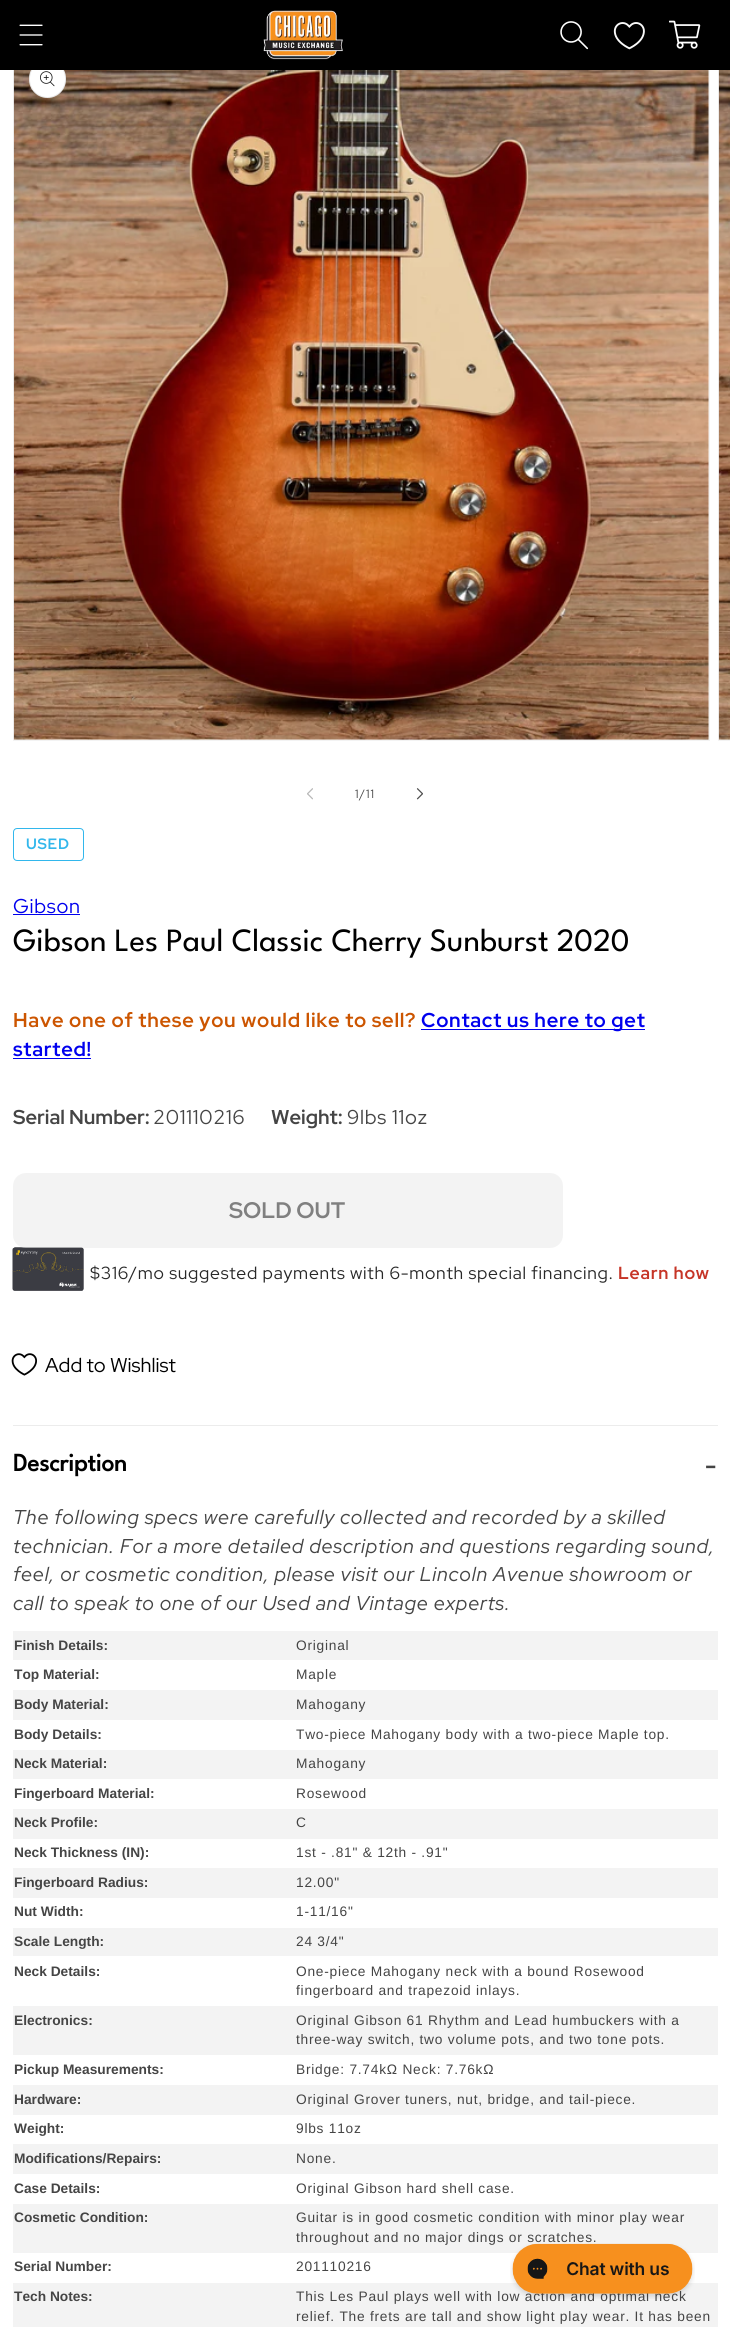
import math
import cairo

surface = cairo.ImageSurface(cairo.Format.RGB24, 730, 2327)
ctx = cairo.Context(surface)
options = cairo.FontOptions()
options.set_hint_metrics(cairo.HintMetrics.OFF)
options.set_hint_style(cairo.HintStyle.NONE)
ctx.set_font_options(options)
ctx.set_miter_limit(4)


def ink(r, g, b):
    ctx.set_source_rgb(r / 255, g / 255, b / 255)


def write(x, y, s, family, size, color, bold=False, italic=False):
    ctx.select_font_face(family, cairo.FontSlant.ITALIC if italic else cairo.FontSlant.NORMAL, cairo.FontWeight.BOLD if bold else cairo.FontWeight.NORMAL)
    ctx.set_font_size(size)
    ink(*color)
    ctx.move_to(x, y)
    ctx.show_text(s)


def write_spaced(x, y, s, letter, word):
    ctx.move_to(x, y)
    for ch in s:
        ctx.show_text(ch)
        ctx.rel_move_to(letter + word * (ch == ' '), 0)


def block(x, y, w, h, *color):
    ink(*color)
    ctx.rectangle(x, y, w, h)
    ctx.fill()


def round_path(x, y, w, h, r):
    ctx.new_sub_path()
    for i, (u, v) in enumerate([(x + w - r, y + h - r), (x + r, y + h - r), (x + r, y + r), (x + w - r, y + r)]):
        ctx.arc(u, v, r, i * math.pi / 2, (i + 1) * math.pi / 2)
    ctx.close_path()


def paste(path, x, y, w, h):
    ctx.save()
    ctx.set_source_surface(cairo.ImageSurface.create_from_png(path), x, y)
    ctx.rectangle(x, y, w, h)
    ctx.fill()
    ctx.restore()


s1 = dict(family="League Spartan Thin", size=32.4, color=(0, 0, 0))
s2 = dict(family="Red Hat Display", size=20, color=(69, 69, 69), bold=True)
s3 = dict(family="Red Hat Display", size=22.5, color=(128, 128, 128), bold=True)
s4 = dict(family="Red Hat Display", size=20, color=(0, 0, 0))
s5 = dict(family="League Spartan", size=25, color=(0, 0, 0), bold=True)
s6 = dict(family="Liberation Sans", size=13.75, color=(69, 69, 69), bold=True)

ink(255, 255, 255)
ctx.paint()
ctx.rectangle(13.5, 44.5, 696, 696)
ink(243, 243, 243)
ctx.set_line_width(1)
ctx.stroke()
paste("pic7.png", 13, 70, 696, 670)
ink(255, 255, 255)
round_path(29, 60, 37, 38, 18.5)
ctx.fill()
round_path(29.5, 60.5, 36, 37, 18)
ctx.set_source_rgba(0.071, 0.071, 0.071, 0.1)
ctx.stroke()
ctx.rectangle(718.5, 44.5, 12, 696)
ink(243, 243, 243)
ctx.stroke()
block(0, 0, 730, 70, 0, 0, 0)
paste("pic1.png", 19, 24, 24, 22)
paste("pic2.png", 263, 10, 80, 50)
paste("pic3.png", 560, 21, 29, 29)
paste("pic4.png", 613, 22, 32, 28)
paste("pic5.png", 669, 20, 32, 29)
paste("pic6.png", 40, 71, 15, 16)
paste("pic8.png", 718, 70, 12, 670)
paste("pic9.png", 307, 788, 6, 12)
ctx.select_font_face("Red Hat Display")
ctx.set_font_size(12)
ink(69, 69, 69)
write_spaced(355, 798, "1/11", 1, 0)
paste("pic10.png", 416, 788, 7, 12)
round_path(13.5, 828.5, 70, 32, 3.5)
ink(50, 183, 236)
ctx.stroke()
ctx.select_font_face("Red Hat Display", cairo.FontSlant.NORMAL, cairo.FontWeight.BOLD)
ctx.set_font_size(15)
write_spaced(26, 849, "USED", 0.75, 0)
ctx.select_font_face("Red Hat Display")
ctx.set_font_size(20)
ink(0, 0, 238)
write_spaced(13, 913, "Gibson", 0.75, 0)
block(13, 914, 67, 1, 0, 0, 238)
write(13, 951, "Gibson Les Paul Classic Cherry Sunburst 2020", **s1)
ctx.select_font_face("Red Hat Display", cairo.FontSlant.NORMAL, cairo.FontWeight.BOLD)
ctx.set_font_size(20)
ink(204, 85, 0)
write_spaced(13, 1027, "Have one of these you would like to sell?", 0.75, 0)
block(421, 1029, 224, 1, 0, 0, 238)
write_spaced(421, 1027, "Contact us here to get", 0.75, 0)
write_spaced(13, 1056, "started!", 0.75, 0)
block(13, 1058, 78, 1, 0, 0, 238)
write(13, 1124, "Serial Number:", **s2)
ctx.select_font_face("Red Hat Display")
write_spaced(153, 1124, "201110216", 0.75, 0)
write(271, 1124, "Weight:", **s2)
ctx.select_font_face("Red Hat Display")
write_spaced(347, 1124, "9lbs 11oz", 0.75, 0)
paste("pic11.png", 12, 1247, 72, 44)
ctx.set_source_rgba(0.91, 0.91, 0.91, 0.5)
round_path(13, 1173, 550, 75, 13)
ctx.fill()
write(229, 1218, "SOLD OUT", **s3)
ctx.select_font_face("Red Hat Display")
ctx.set_font_size(17.5)
ink(40, 40, 40)
write_spaced(90, 1279, "$316/mo suggested payments with 6-month special financing.", 0.75, 0)
ctx.select_font_face("Red Hat Display", cairo.FontSlant.NORMAL, cairo.FontWeight.BOLD)
ink(198, 53, 39)
write_spaced(618, 1279, "Learn how", 0.75, 0)
paste("pic12.png", 11, 1353, 26, 23)
write(45, 1372, "Add to Wishlist", **s4)
block(13, 1425, 705, 1, 236, 236, 236)
write(13, 1471, "Description", **s5)
ctx.select_font_face("Red Hat Display", cairo.FontSlant.NORMAL, cairo.FontWeight.BOLD)
ink(69, 69, 69)
write_spaced(705, 1474, "-", 0.75, 0)
ctx.select_font_face("Red Hat Display", cairo.FontSlant.ITALIC)
ctx.set_font_size(20)
write_spaced(13, 1524, "The following specs were carefully collected and recorded by a skilled", 0.75, 0)
write_spaced(13, 1553, "technician. For a more detailed description and questions regarding sound,", 0.75, 0)
write_spaced(13, 1581, "feel, or cosmetic condition, please visit our Lincoln Avenue showroom or", 0.75, 0)
write_spaced(13, 1610, "call to speak to one of our Used and Vintage experts.", 0.75, 0)
block(13, 1631, 705, 29, 243, 243, 243)
write(14, 1650, "Finish Details:", **s6)
ctx.select_font_face("Liberation Sans")
write_spaced(296, 1650, "Original", 0.75, 0)
write(14, 1679, "Top Material:", **s6)
ctx.select_font_face("Liberation Sans")
write_spaced(296, 1679, "Maple", 0.75, 0)
block(13, 1690, 705, 30, 243, 243, 243)
write(14, 1709, "Body Material:", **s6)
ctx.select_font_face("Liberation Sans")
write_spaced(296, 1709, "Mahogany", 0.75, 0)
write(14, 1739, "Body Details:", **s6)
ctx.select_font_face("Liberation Sans")
write_spaced(296, 1739, "Two-piece Mahogany body with a two-piece Maple top.", 0.75, 0)
block(13, 1750, 705, 29, 243, 243, 243)
write(14, 1768, "Neck Material:", **s6)
ctx.select_font_face("Liberation Sans")
write_spaced(296, 1768, "Mahogany", 0.75, 0)
write(14, 1798, "Fingerboard Material:", **s6)
ctx.select_font_face("Liberation Sans")
write_spaced(296, 1798, "Rosewood", 0.75, 0)
block(13, 1809, 705, 30, 243, 243, 243)
write(14, 1827, "Neck Profile:", **s6)
ctx.select_font_face("Liberation Sans")
write_spaced(296, 1827, "C", 0.75, 0)
write(14, 1857, "Neck Thickness (IN):", **s6)
ctx.select_font_face("Liberation Sans")
write_spaced(296, 1857, "1st - .81\" & 12th - .91\"", 0.75, 0)
block(13, 1868, 705, 30, 243, 243, 243)
write(14, 1887, "Fingerboard Radius:", **s6)
ctx.select_font_face("Liberation Sans")
write_spaced(296, 1887, "12.00\"", 0.75, 0)
write(14, 1916, "Nut Width:", **s6)
ctx.select_font_face("Liberation Sans")
write_spaced(296, 1916, "1-11/16\"", 0.75, 0)
block(13, 1928, 705, 28, 243, 243, 243)
write(14, 1946, "Scale Length:", **s6)
ctx.select_font_face("Liberation Sans")
write_spaced(296, 1946, "24 3/4\"", 0.75, 0)
write(14, 1976, "Neck Details:", **s6)
ctx.select_font_face("Liberation Sans")
write_spaced(296, 1976, "One-piece Mahogany neck with a bound Rosewood", 0.75, 0)
write_spaced(296, 1995, "fingerboard and trapezoid inlays.", 0.75, 0)
block(13, 2006, 705, 49, 243, 243, 243)
write(14, 2025, "Electronics:", **s6)
ctx.select_font_face("Liberation Sans")
write_spaced(296, 2025, "Original Gibson 61 Rhythm and Lead humbuckers with a", 0.75, 0)
write_spaced(296, 2044, "three-way switch, two volume pots, and two tone pots.", 0.75, 0)
write(14, 2074, "Pickup Measurements:", **s6)
ctx.select_font_face("Liberation Sans")
write_spaced(296, 2074, "Bridge: 7.74kΩ Neck: 7.76kΩ", 0.75, 0)
block(13, 2085, 705, 30, 243, 243, 243)
write(14, 2104, "Hardware:", **s6)
ctx.select_font_face("Liberation Sans")
write_spaced(296, 2104, "Original Grover tuners, nut, bridge, and tail-piece.", 0.75, 0)
write(14, 2133, "Weight:", **s6)
ctx.select_font_face("Liberation Sans")
write_spaced(296, 2133, "9lbs 11oz", 0.75, 0)
block(13, 2144, 705, 30, 243, 243, 243)
write(14, 2163, "Modifications/Repairs:", **s6)
ctx.select_font_face("Liberation Sans")
write_spaced(296, 2163, "None.", 0.75, 0)
write(14, 2193, "Case Details:", **s6)
ctx.select_font_face("Liberation Sans")
write_spaced(296, 2193, "Original Gibson hard shell case.", 0.75, 0)
block(13, 2204, 705, 49, 243, 243, 243)
write(14, 2222, "Cosmetic Condition:", **s6)
ctx.select_font_face("Liberation Sans")
write_spaced(296, 2222, "Guitar is in good cosmetic condition with minor play wear", 0.75, 0)
write_spaced(296, 2242, "throughout and no major dings or scratches.", 0.75, 0)
write(14, 2271, "Serial Number:", **s6)
ctx.select_font_face("Liberation Sans")
write_spaced(296, 2271, "201110216", 0.75, 0)
block(13, 2283, 705, 44, 243, 243, 243)
write(14, 2301, "Tech Notes:", **s6)
ctx.select_font_face("Liberation Sans")
write_spaced(296, 2301, "This Les Paul plays well with low action and optimal neck", 0.75, 0)
write_spaced(296, 2321, "relief. The frets are tall and show light play wear. It has been", 0.75, 0)
paste("pic13.png", 510, 2243, 185, 56)
surface.write_to_png("screenshot.png")
